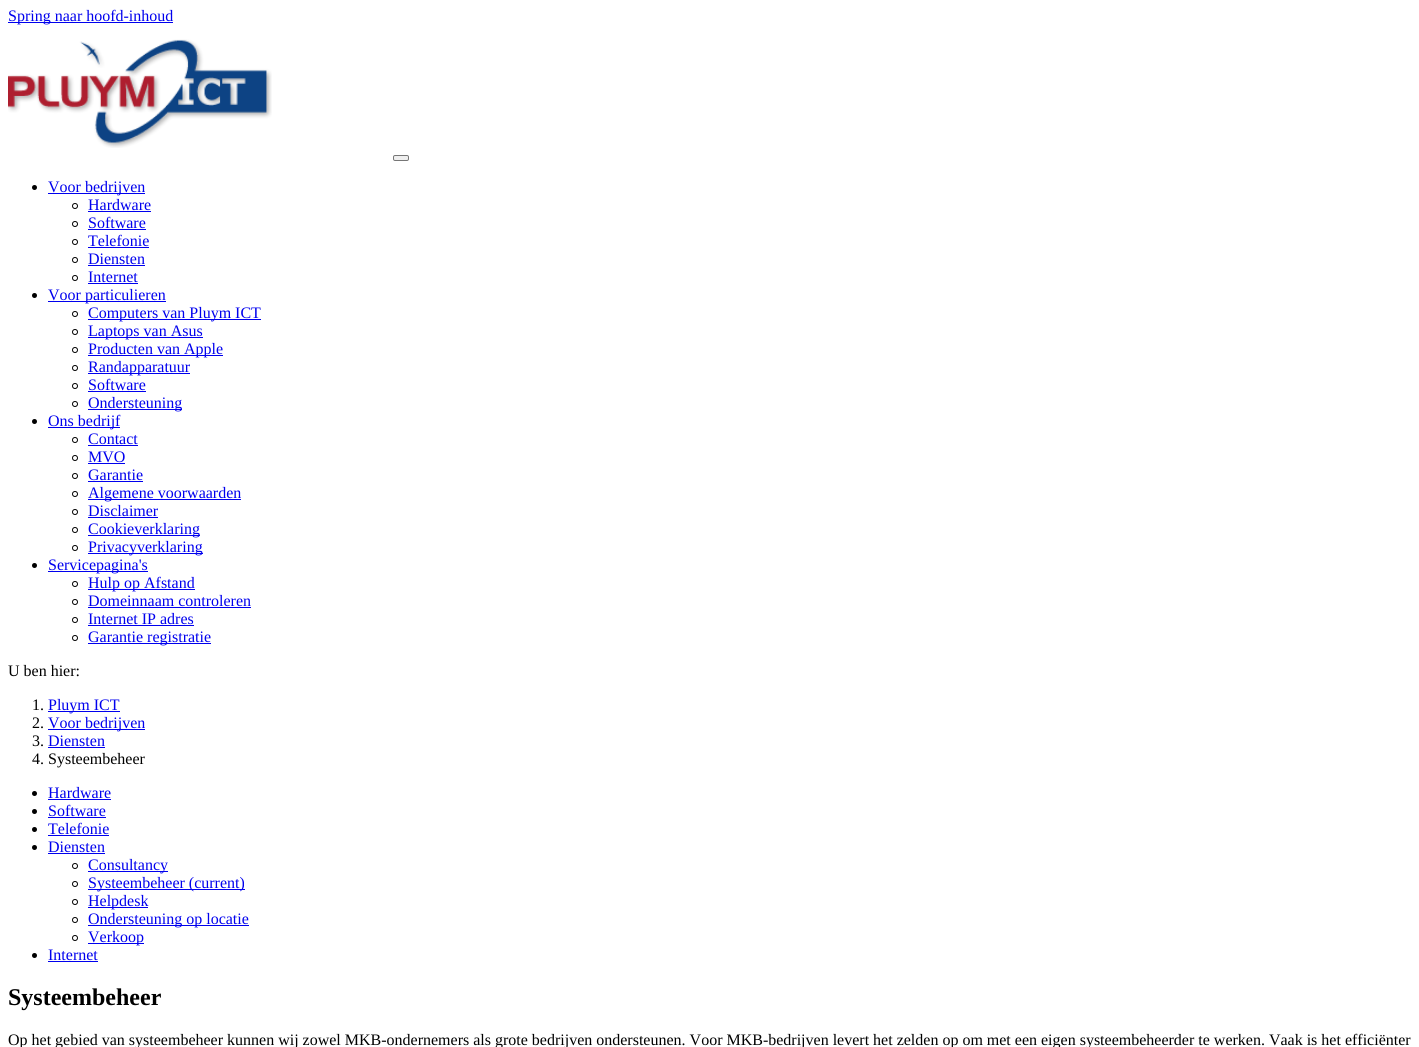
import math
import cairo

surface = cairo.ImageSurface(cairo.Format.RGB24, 1419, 1047)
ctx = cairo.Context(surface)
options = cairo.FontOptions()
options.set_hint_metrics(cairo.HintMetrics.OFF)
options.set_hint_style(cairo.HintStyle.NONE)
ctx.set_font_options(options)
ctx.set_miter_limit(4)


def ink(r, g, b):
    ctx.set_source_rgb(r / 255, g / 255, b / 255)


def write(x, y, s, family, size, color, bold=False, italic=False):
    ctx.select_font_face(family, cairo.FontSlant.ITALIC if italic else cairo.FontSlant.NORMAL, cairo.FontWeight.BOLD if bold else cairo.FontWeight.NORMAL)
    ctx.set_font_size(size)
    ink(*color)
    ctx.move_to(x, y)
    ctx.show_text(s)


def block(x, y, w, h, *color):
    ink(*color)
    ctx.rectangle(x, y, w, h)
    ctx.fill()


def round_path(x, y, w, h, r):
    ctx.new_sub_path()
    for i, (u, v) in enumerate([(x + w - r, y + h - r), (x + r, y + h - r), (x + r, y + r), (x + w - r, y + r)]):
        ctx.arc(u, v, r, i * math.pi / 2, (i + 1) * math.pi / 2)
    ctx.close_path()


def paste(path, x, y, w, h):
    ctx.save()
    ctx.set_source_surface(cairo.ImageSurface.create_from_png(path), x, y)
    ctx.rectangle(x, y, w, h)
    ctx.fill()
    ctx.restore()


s1 = dict(family="Liberation Serif", size=16, color=(0, 0, 238))
s2 = dict(family="Liberation Serif", size=16, color=(0, 0, 0))
s3 = dict(family="Liberation Serif", size=24, color=(0, 0, 0), bold=True)

ink(255, 255, 255)
ctx.paint()
block(8, 22, 165, 1, 0, 0, 238)
write(8, 21, "Spring naar hoofd-inhoud", **s1)
paste("pic1.png", 8, 39, 264, 109)
ink(239, 239, 239)
round_path(393.5, 155.5, 15, 5, 1.5)
ctx.fill_preserve()
ink(118, 118, 118)
ctx.set_line_width(1)
ctx.stroke()
ink(0, 0, 0)
ctx.arc(34.5, 187.5, 2.5, 0, 2 * math.pi)
ctx.fill()
block(48, 193, 97, 1, 0, 0, 238)
write(48, 192, "Voor bedrijven", **s1)
ctx.new_path()
ctx.arc(75, 206, 2.5, 0, 2 * math.pi)
ink(0, 0, 0)
ctx.stroke()
write(88, 210, "Hardware", **s1)
block(88, 211, 63, 1, 0, 0, 238)
ctx.new_path()
ctx.arc(75, 224, 2.5, 0, 2 * math.pi)
ink(0, 0, 0)
ctx.stroke()
write(88, 228, "Software", **s1)
block(88, 229, 58, 1, 0, 0, 238)
ctx.new_path()
ctx.arc(75, 242, 2.5, 0, 2 * math.pi)
ink(0, 0, 0)
ctx.stroke()
write(88, 246, "Telefonie", **s1)
block(88, 247, 61, 1, 0, 0, 238)
ctx.new_path()
ctx.arc(75, 260, 2.5, 0, 2 * math.pi)
ink(0, 0, 0)
ctx.stroke()
write(88, 264, "Diensten", **s1)
block(88, 265, 57, 1, 0, 0, 238)
ctx.new_path()
ctx.arc(75, 278, 2.5, 0, 2 * math.pi)
ink(0, 0, 0)
ctx.stroke()
write(88, 282, "Internet", **s1)
block(88, 283, 50, 1, 0, 0, 238)
ink(0, 0, 0)
ctx.new_path()
ctx.arc(34.5, 295.5, 2.5, 0, 2 * math.pi)
ctx.fill()
block(48, 301, 118, 1, 0, 0, 238)
write(48, 300, "Voor particulieren", **s1)
ctx.new_path()
ctx.arc(75, 314, 2.5, 0, 2 * math.pi)
ink(0, 0, 0)
ctx.stroke()
block(88, 319, 173, 1, 0, 0, 238)
write(88, 318, "Computers van Pluym ICT", **s1)
ctx.new_path()
ctx.arc(75, 332, 2.5, 0, 2 * math.pi)
ink(0, 0, 0)
ctx.stroke()
block(88, 337, 115, 1, 0, 0, 238)
write(88, 336, "Laptops van Asus", **s1)
ctx.new_path()
ctx.arc(75, 350, 2.5, 0, 2 * math.pi)
ink(0, 0, 0)
ctx.stroke()
block(88, 355, 135, 1, 0, 0, 238)
write(88, 354, "Producten van Apple", **s1)
ctx.new_path()
ctx.arc(75, 368, 2.5, 0, 2 * math.pi)
ink(0, 0, 0)
ctx.stroke()
block(88, 373, 102, 1, 0, 0, 238)
write(88, 372, "Randapparatuur", **s1)
ctx.new_path()
ctx.arc(75, 386, 2.5, 0, 2 * math.pi)
ink(0, 0, 0)
ctx.stroke()
write(88, 390, "Software", **s1)
block(88, 391, 58, 1, 0, 0, 238)
ctx.new_path()
ctx.arc(75, 404, 2.5, 0, 2 * math.pi)
ink(0, 0, 0)
ctx.stroke()
block(88, 409, 94, 1, 0, 0, 238)
write(88, 408, "Ondersteuning", **s1)
ink(0, 0, 0)
ctx.new_path()
ctx.arc(34.5, 421.5, 2.5, 0, 2 * math.pi)
ctx.fill()
block(48, 427, 72, 1, 0, 0, 238)
write(48, 426, "Ons bedrijf", **s1)
ctx.new_path()
ctx.arc(75, 440, 2.5, 0, 2 * math.pi)
ink(0, 0, 0)
ctx.stroke()
write(88, 444, "Contact", **s1)
block(88, 445, 50, 1, 0, 0, 238)
ctx.new_path()
ctx.arc(75, 458, 2.5, 0, 2 * math.pi)
ink(0, 0, 0)
ctx.stroke()
write(88, 462, "MVO", **s1)
block(88, 463, 37, 1, 0, 0, 238)
ctx.new_path()
ctx.arc(75, 476, 2.5, 0, 2 * math.pi)
ink(0, 0, 0)
ctx.stroke()
write(88, 480, "Garantie", **s1)
block(88, 481, 55, 1, 0, 0, 238)
ctx.new_path()
ctx.arc(75, 494, 2.5, 0, 2 * math.pi)
ink(0, 0, 0)
ctx.stroke()
block(88, 499, 153, 1, 0, 0, 238)
write(88, 498, "Algemene voorwaarden", **s1)
ctx.new_path()
ctx.arc(75, 512, 2.5, 0, 2 * math.pi)
ink(0, 0, 0)
ctx.stroke()
write(88, 516, "Disclaimer", **s1)
block(88, 517, 70, 1, 0, 0, 238)
ctx.new_path()
ctx.arc(75, 530, 2.5, 0, 2 * math.pi)
ink(0, 0, 0)
ctx.stroke()
block(88, 535, 112, 1, 0, 0, 238)
write(88, 534, "Cookieverklaring", **s1)
ctx.new_path()
ctx.arc(75, 548, 2.5, 0, 2 * math.pi)
ink(0, 0, 0)
ctx.stroke()
block(88, 553, 115, 1, 0, 0, 238)
write(88, 552, "Privacyverklaring", **s1)
ink(0, 0, 0)
ctx.new_path()
ctx.arc(34.5, 565.5, 2.5, 0, 2 * math.pi)
ctx.fill()
block(48, 571, 100, 1, 0, 0, 238)
write(48, 570, "Servicepagina's", **s1)
ctx.new_path()
ctx.arc(75, 584, 2.5, 0, 2 * math.pi)
ink(0, 0, 0)
ctx.stroke()
block(88, 589, 107, 1, 0, 0, 238)
write(88, 588, "Hulp op Afstand", **s1)
ctx.new_path()
ctx.arc(75, 602, 2.5, 0, 2 * math.pi)
ink(0, 0, 0)
ctx.stroke()
write(88, 606, "Domeinnaam controleren", **s1)
block(88, 607, 163, 1, 0, 0, 238)
ctx.new_path()
ctx.arc(75, 620, 2.5, 0, 2 * math.pi)
ink(0, 0, 0)
ctx.stroke()
write(88, 624, "Internet IP adres", **s1)
block(88, 625, 106, 1, 0, 0, 238)
ctx.new_path()
ctx.arc(75, 638, 2.5, 0, 2 * math.pi)
ink(0, 0, 0)
ctx.stroke()
block(88, 643, 123, 1, 0, 0, 238)
write(88, 642, "Garantie registratie", **s1)
write(8, 676, "U ben hier:", **s2)
write(32, 710, "1.", **s2)
block(48, 711, 72, 1, 0, 0, 238)
write(48, 710, "Pluym ICT", **s1)
write(32, 728, "2.", **s2)
block(48, 729, 97, 1, 0, 0, 238)
write(48, 728, "Voor bedrijven", **s1)
write(32, 746, "3.", **s2)
write(48, 746, "Diensten", **s1)
block(48, 747, 57, 1, 0, 0, 238)
write(32, 764, "4. Systeembeheer", **s2)
ctx.new_path()
ctx.arc(34.5, 793.5, 2.5, 0, 2 * math.pi)
ctx.fill()
write(48, 798, "Hardware", **s1)
block(48, 799, 63, 1, 0, 0, 238)
ink(0, 0, 0)
ctx.new_path()
ctx.arc(34.5, 811.5, 2.5, 0, 2 * math.pi)
ctx.fill()
write(48, 816, "Software", **s1)
block(48, 817, 58, 1, 0, 0, 238)
ink(0, 0, 0)
ctx.new_path()
ctx.arc(34.5, 829.5, 2.5, 0, 2 * math.pi)
ctx.fill()
write(48, 834, "Telefonie", **s1)
block(48, 835, 61, 1, 0, 0, 238)
ink(0, 0, 0)
ctx.new_path()
ctx.arc(34.5, 847.5, 2.5, 0, 2 * math.pi)
ctx.fill()
write(48, 852, "Diensten", **s1)
block(48, 853, 57, 1, 0, 0, 238)
ctx.new_path()
ctx.arc(75, 866, 2.5, 0, 2 * math.pi)
ink(0, 0, 0)
ctx.stroke()
block(88, 871, 80, 1, 0, 0, 238)
write(88, 870, "Consultancy", **s1)
ctx.new_path()
ctx.arc(75, 884, 2.5, 0, 2 * math.pi)
ink(0, 0, 0)
ctx.stroke()
block(88, 889, 157, 1, 0, 0, 238)
write(88, 888, "Systeembeheer (current)", **s1)
ctx.new_path()
ctx.arc(75, 902, 2.5, 0, 2 * math.pi)
ink(0, 0, 0)
ctx.stroke()
block(88, 907, 60, 1, 0, 0, 238)
write(88, 906, "Helpdesk", **s1)
ctx.new_path()
ctx.arc(75, 920, 2.5, 0, 2 * math.pi)
ink(0, 0, 0)
ctx.stroke()
block(88, 925, 161, 1, 0, 0, 238)
write(88, 924, "Ondersteuning op locatie", **s1)
ctx.new_path()
ctx.arc(75, 938, 2.5, 0, 2 * math.pi)
ink(0, 0, 0)
ctx.stroke()
block(88, 943, 56, 1, 0, 0, 238)
write(88, 942, "Verkoop", **s1)
ink(0, 0, 0)
ctx.new_path()
ctx.arc(34.5, 955.5, 2.5, 0, 2 * math.pi)
ctx.fill()
write(48, 960, "Internet", **s1)
block(48, 961, 50, 1, 0, 0, 238)
write(8, 1005, "Systeembeheer", **s3)
write(8, 1045, "Op het gebied van systeembeheer kunnen wij zowel MKB-ondernemers als grote bedrijven ondersteunen. Voor MKB-bedrijven levert het zelden op om met een eigen systeembeheerder te werken. Vaak is het efficiënter", **s2)
surface.write_to_png("screenshot.png")
